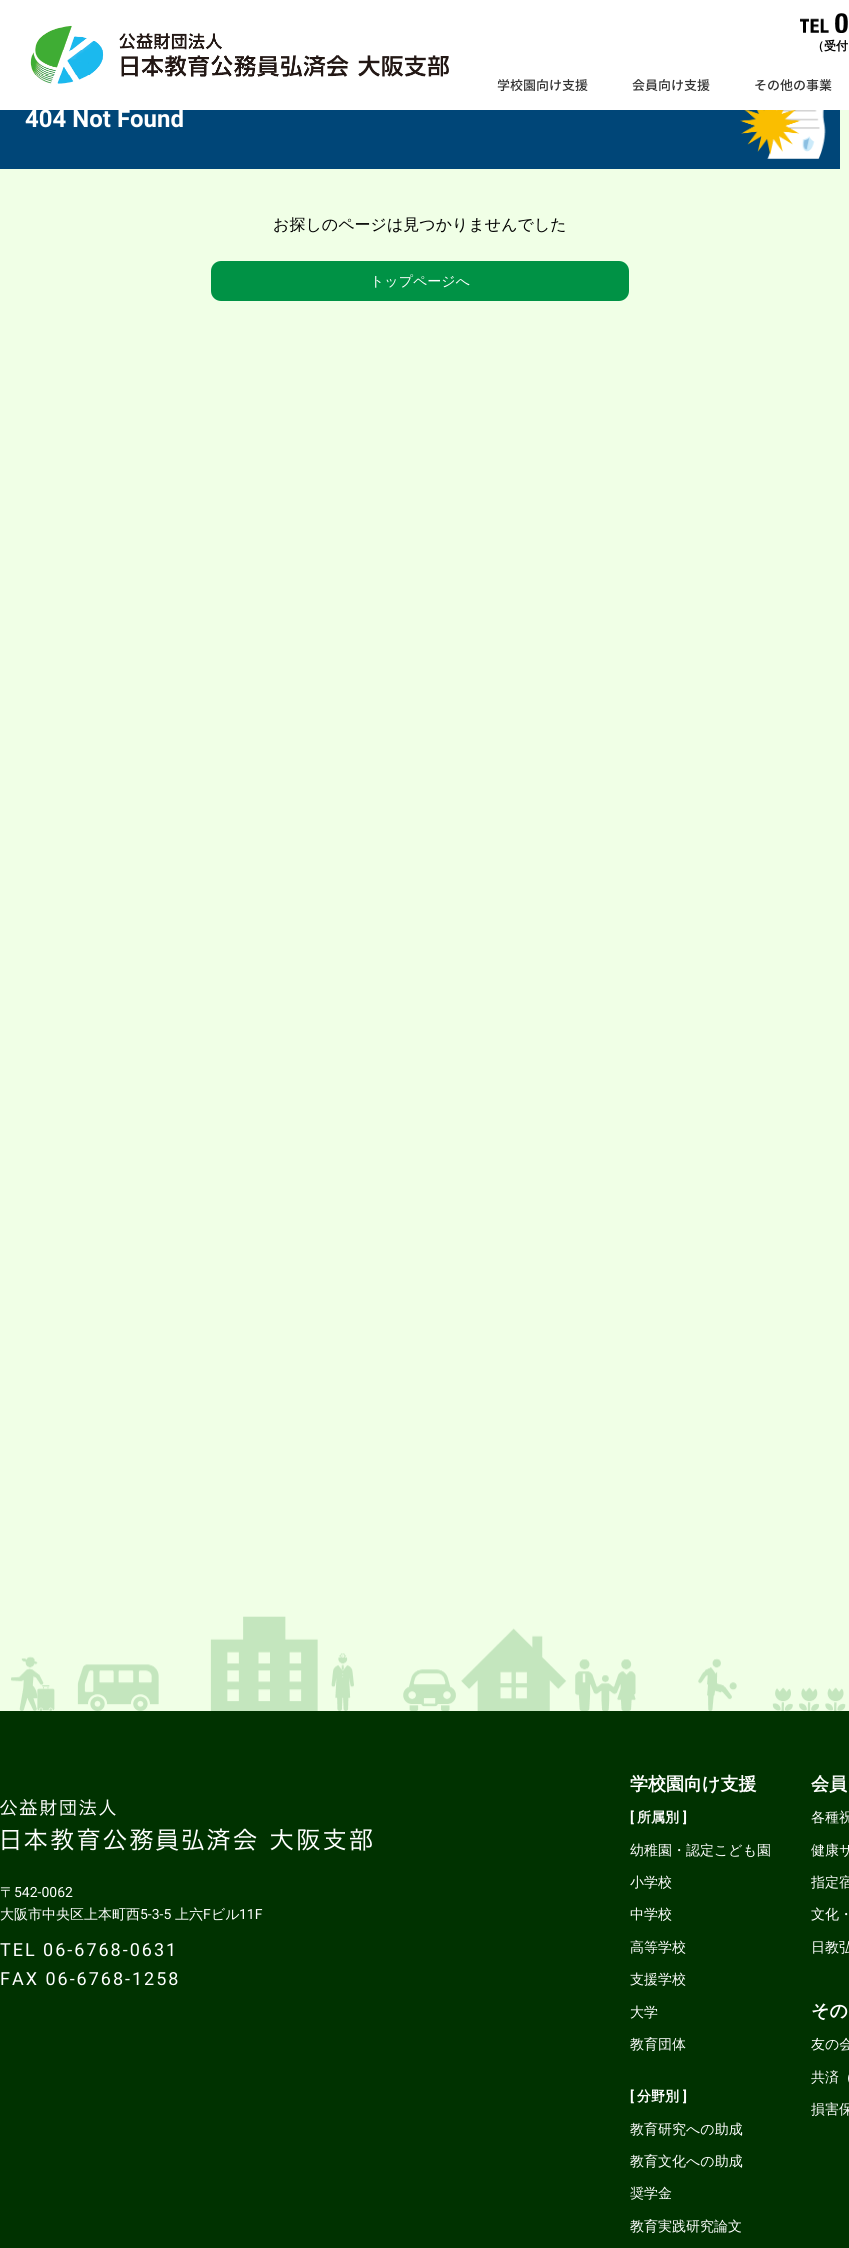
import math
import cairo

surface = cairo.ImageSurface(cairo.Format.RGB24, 849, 2248)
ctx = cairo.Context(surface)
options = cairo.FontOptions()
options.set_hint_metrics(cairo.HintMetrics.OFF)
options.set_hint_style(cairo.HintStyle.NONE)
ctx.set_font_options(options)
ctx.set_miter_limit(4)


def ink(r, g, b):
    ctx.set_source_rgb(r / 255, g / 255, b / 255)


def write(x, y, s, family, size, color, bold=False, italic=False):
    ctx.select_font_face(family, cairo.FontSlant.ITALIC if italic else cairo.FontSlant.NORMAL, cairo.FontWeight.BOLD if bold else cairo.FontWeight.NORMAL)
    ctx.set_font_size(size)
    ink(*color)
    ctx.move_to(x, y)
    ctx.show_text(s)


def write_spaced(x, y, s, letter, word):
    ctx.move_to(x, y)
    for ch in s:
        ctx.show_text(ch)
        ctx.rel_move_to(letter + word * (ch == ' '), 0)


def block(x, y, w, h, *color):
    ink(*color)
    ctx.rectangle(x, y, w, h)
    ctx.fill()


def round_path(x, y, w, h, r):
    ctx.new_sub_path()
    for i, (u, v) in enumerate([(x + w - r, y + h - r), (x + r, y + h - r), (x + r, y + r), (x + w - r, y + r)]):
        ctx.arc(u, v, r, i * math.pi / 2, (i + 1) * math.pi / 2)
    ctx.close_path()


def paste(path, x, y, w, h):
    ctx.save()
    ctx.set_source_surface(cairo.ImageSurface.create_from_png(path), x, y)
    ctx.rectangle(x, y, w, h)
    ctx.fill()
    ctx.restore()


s1 = dict(family="Noto Sans CJK JP Medium", size=13, color=(51, 51, 51))
s2 = dict(family="Roboto", size=24, color=(255, 255, 255), bold=True)
s3 = dict(family="WenQuanYi Zen Hei Medium", size=16, color=(0, 0, 0))
s4 = dict(family="WenQuanYi Zen Hei Medium", size=14, color=(255, 255, 255))
s5 = dict(family="Roboto", size=14, color=(255, 255, 255))
s6 = dict(family="WenQuanYi Zen Hei", size=18, color=(255, 255, 255), bold=True)
s7 = dict(family="Roboto", size=14, color=(255, 255, 255), bold=True)
s8 = dict(family="WenQuanYi Zen Hei", size=14, color=(255, 255, 255), bold=True)

ink(240, 255, 230)
ctx.paint()
block(0, 0, 849, 110, 255, 255, 255)
paste("pic1.png", 30, 25, 419, 60)
paste("pic2.png", 800, 13, 48, 20)
ctx.select_font_face("WenQuanYi Zen Hei", cairo.FontSlant.NORMAL, cairo.FontWeight.BOLD)
ctx.set_font_size(12)
ink(0, 0, 0)
write_spaced(812, 50, "（受付", 0, -1)
write(497, 90, "学校園向け支援", **s1)
write(632, 90, "会員向け支援", **s1)
write(754, 90, "その他の事業", **s1)
paste("pic3.png", 11, 1616, 835, 95)
block(0, 110, 840, 59, 0, 70, 120)
write(25, 127, "404 Not Found", **s2)
paste("pic4.png", 740, 110, 86, 49)
write(273, 230, "お探しのページは見つかりませんでした", **s3)
ink(0, 146, 69)
round_path(211, 261, 418, 40, 10)
ctx.fill()
write(370, 286, "トップページへ", **s4)
block(0, 1711, 849, 537, 0, 50, 0)
paste("pic5.png", 0, 1799, 372, 52)
write(0, 1897, "〒", **s4)
write(14, 1897, "542-0062", **s5)
write(0, 1919, "大阪市中央区上本町西", **s4)
write(140, 1919, "5-3-5", **s5)
write(175, 1919, "上六", **s4)
write(203, 1919, "F", **s5)
write(211, 1919, "ビル", **s4)
write(239, 1919, "11F", **s5)
ctx.set_font_size(18)
write_spaced(0, 1956, "TEL 06-6768-0631", 2, 0)
write_spaced(0, 1985, "FAX 06-6768-1258", 2, 0)
write(630, 1790, "学校園向け支援", **s6)
write(630, 1822, "[", **s7)
write(637, 1822, "所属別", **s8)
write(683, 1822, "]", **s7)
write(630, 1855, "幼稚園・認定こども園", **s4)
write(630, 1887, "小学校", **s4)
write(630, 1919, "中学校", **s4)
write(630, 1952, "高等学校", **s4)
write(630, 1984, "支援学校", **s4)
write(630, 2017, "大学", **s4)
write(630, 2049, "教育団体", **s4)
write(630, 2101, "[", **s7)
write(637, 2101, "分野別", **s8)
write(683, 2101, "]", **s7)
write(630, 2134, "教育研究への助成", **s4)
write(630, 2166, "教育文化への助成", **s4)
write(630, 2198, "奨学金", **s4)
write(630, 2231, "教育実践研究論文", **s4)
write(811, 1790, "会員", **s6)
write(811, 1822, "各種祝", **s4)
write(811, 1855, "健康サ", **s4)
write(811, 1887, "指定宿", **s4)
write(811, 1919, "文化・", **s4)
write(811, 1952, "日教弘", **s4)
write(811, 2017, "その", **s6)
write(811, 2049, "友の会", **s4)
write(811, 2082, "共済（", **s4)
write(811, 2114, "損害保", **s4)
surface.write_to_png("screenshot.png")
